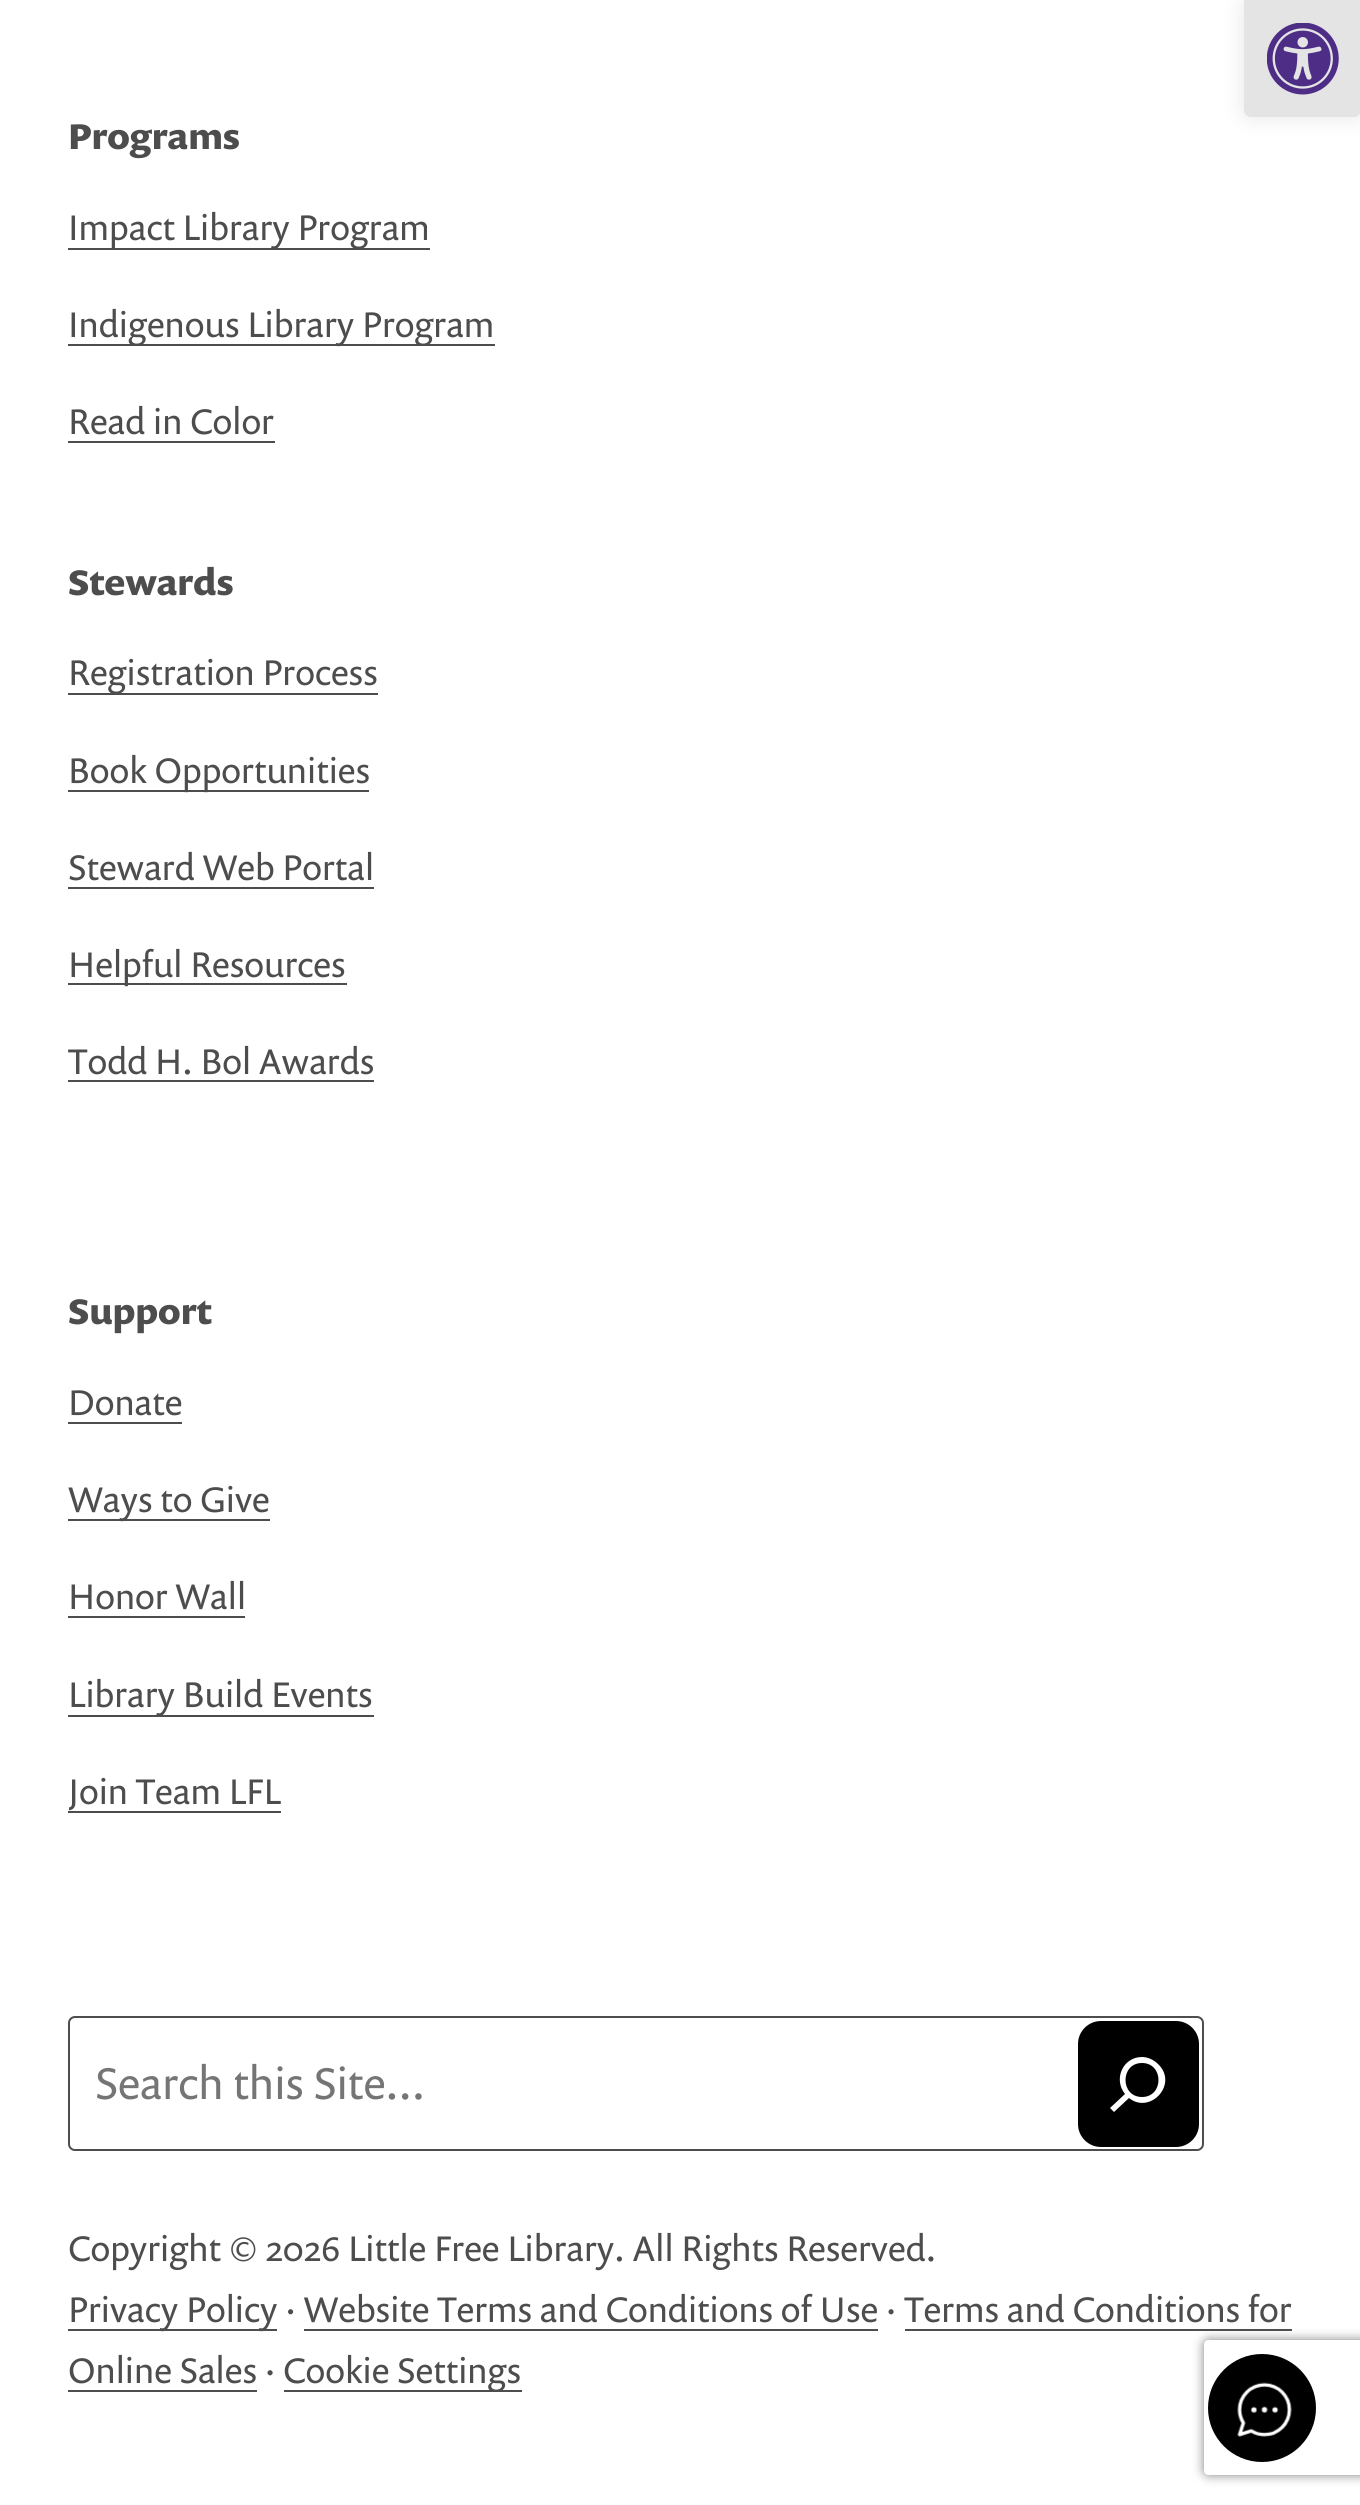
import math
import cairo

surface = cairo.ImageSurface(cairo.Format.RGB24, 1360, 2505)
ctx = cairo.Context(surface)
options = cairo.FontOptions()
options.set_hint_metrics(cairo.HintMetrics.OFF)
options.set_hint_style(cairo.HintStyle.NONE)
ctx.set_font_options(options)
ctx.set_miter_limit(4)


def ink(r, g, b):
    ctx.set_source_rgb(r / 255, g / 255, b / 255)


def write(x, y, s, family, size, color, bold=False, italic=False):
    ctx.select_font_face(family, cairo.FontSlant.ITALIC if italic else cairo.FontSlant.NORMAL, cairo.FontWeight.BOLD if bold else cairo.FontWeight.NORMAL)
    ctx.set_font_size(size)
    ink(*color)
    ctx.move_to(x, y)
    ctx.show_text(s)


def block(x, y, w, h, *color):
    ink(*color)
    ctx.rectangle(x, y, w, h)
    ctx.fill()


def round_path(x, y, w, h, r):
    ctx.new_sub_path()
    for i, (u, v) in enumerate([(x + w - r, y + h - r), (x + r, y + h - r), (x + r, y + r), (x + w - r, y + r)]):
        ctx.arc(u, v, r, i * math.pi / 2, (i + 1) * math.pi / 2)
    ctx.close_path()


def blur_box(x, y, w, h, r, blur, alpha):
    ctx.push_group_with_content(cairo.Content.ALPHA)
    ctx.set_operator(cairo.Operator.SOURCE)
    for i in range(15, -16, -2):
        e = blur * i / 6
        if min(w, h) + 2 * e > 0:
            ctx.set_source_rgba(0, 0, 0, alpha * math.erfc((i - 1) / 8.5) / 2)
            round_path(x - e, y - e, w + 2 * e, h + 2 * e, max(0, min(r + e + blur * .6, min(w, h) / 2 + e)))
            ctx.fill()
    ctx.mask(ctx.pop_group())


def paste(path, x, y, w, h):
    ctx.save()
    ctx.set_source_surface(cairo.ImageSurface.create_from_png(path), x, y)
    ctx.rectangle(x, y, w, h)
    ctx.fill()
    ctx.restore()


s1 = dict(family="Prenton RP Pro", size=36, color=(77, 77, 77), bold=True)
s2 = dict(family="Prenton RP Pro", size=36, color=(77, 77, 77))
s3 = dict(family="Prenton RP Pro", size=45, color=(117, 117, 117))

ink(255, 255, 255)
ctx.paint()
ink(0, 0, 0)
blur_box(1244, 0, 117, 117, 7, 11, 0.1)
ink(228, 228, 228)
ctx.new_path()
ctx.move_to(1244, 0)
ctx.line_to(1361, 0)
ctx.line_to(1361, 110)
ctx.curve_to(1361, 114, 1358, 117, 1354, 117)
ctx.line_to(1251, 117)
ctx.curve_to(1247, 117, 1244, 114, 1244, 110)
ctx.close_path()
ctx.fill()
paste("pic1.png", 1267, 23, 72, 72)
write(68, 149, "Programs", **s1)
block(68, 248, 362, 2, 77, 77, 77)
write(68, 240, "Impact Library Program", **s2)
block(68, 344, 427, 2, 77, 77, 77)
write(68, 337, "Indigenous Library Program", **s2)
write(68, 434, "Read in Color", **s2)
block(68, 441, 207, 2, 77, 77, 77)
write(68, 595, "Stewards", **s1)
block(68, 693, 310, 2, 77, 77, 77)
write(68, 685, "Registration Process", **s2)
block(68, 790, 301, 2, 77, 77, 77)
write(68, 783, "Book Opportunities", **s2)
write(68, 880, "Steward Web Portal", **s2)
block(68, 887, 306, 2, 77, 77, 77)
block(68, 983, 279, 2, 77, 77, 77)
write(68, 977, "Helpful Resources", **s2)
write(68, 1074, "Todd H. Bol Awards", **s2)
block(68, 1080, 306, 2, 77, 77, 77)
write(68, 1324, "Support", **s1)
write(68, 1415, "Donate", **s2)
block(68, 1422, 114, 2, 77, 77, 77)
block(68, 1519, 202, 2, 77, 77, 77)
write(68, 1512, "Ways to Give", **s2)
write(68, 1609, "Honor Wall", **s2)
block(68, 1616, 177, 2, 77, 77, 77)
block(68, 1715, 306, 2, 77, 77, 77)
write(68, 1707, "Library Build Events", **s2)
write(68, 1804, "Join Team LFL", **s2)
block(68, 1811, 213, 2, 77, 77, 77)
round_path(69, 2017, 1134, 133, 6)
ctx.stroke()
write(95, 2099, "Search this Site...", **s3)
ink(0, 0, 0)
round_path(1078, 2021, 121, 126, 23)
ctx.fill()
ink(255, 255, 255)
ctx.new_path()
ctx.move_to(1142, 2057)
ctx.curve_to(1123, 2057, 1113, 2079, 1125, 2094)
ctx.line_to(1110, 2108)
ctx.line_to(1114, 2112)
ctx.line_to(1129, 2098)
ctx.curve_to(1150, 2115, 1179, 2084, 1158, 2064)
ctx.curve_to(1154, 2060, 1148, 2057, 1142, 2057)
ctx.close_path()
ctx.move_to(1142, 2097)
ctx.curve_to(1120, 2097, 1120, 2063, 1142, 2063)
ctx.curve_to(1164, 2063, 1164, 2097, 1142, 2097)
ctx.close_path()
ctx.fill()
write(68, 2261, "Copyright © 2026 Little Free Library. All Rights Reserved.", **s2)
block(68, 2329, 209, 2, 77, 77, 77)
write(68, 2322, "Privacy Policy · Website Terms and Conditions of Use · Terms and Conditions for", **s2)
block(304, 2329, 574, 2, 77, 77, 77)
write(68, 2383, "Online Sales ·", **s2)
block(905, 2329, 387, 2, 77, 77, 77)
block(68, 2390, 189, 2, 77, 77, 77)
block(284, 2390, 238, 2, 77, 77, 77)
write(283, 2383, "Cookie Settings", **s2)
ctx.save()
ctx.set_fill_rule(cairo.FillRule.EVEN_ODD)
ctx.new_path()
ctx.move_to(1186, 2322)
ctx.line_to(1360, 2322)
ctx.line_to(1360, 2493)
ctx.line_to(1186, 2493)
ctx.close_path()
ctx.move_to(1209, 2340)
ctx.line_to(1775, 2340)
ctx.curve_to(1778, 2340, 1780, 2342, 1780, 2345)
ctx.line_to(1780, 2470)
ctx.curve_to(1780, 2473, 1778, 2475, 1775, 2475)
ctx.line_to(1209, 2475)
ctx.curve_to(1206, 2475, 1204, 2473, 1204, 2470)
ctx.line_to(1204, 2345)
ctx.curve_to(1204, 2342, 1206, 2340, 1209, 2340)
ctx.close_path()
ctx.clip()
ink(128, 128, 128)
blur_box(1204, 2340, 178, 135, 5, 5.5, 1)
ctx.restore()
ink(0, 0, 0)
ctx.arc(1262, 2408, 54, 0, 2 * math.pi)
ctx.fill()
paste("pic2.png", 1237, 2382, 55, 55)
surface.write_to_png("screenshot.png")
